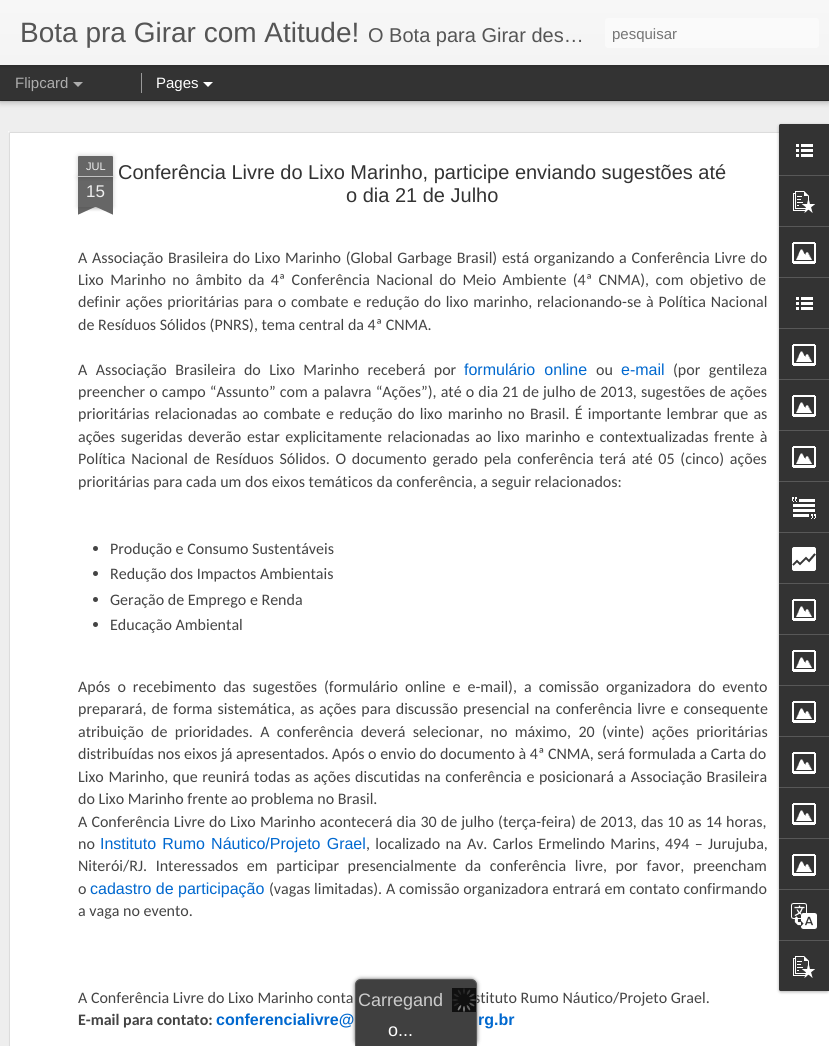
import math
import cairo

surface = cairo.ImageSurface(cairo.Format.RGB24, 829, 1046)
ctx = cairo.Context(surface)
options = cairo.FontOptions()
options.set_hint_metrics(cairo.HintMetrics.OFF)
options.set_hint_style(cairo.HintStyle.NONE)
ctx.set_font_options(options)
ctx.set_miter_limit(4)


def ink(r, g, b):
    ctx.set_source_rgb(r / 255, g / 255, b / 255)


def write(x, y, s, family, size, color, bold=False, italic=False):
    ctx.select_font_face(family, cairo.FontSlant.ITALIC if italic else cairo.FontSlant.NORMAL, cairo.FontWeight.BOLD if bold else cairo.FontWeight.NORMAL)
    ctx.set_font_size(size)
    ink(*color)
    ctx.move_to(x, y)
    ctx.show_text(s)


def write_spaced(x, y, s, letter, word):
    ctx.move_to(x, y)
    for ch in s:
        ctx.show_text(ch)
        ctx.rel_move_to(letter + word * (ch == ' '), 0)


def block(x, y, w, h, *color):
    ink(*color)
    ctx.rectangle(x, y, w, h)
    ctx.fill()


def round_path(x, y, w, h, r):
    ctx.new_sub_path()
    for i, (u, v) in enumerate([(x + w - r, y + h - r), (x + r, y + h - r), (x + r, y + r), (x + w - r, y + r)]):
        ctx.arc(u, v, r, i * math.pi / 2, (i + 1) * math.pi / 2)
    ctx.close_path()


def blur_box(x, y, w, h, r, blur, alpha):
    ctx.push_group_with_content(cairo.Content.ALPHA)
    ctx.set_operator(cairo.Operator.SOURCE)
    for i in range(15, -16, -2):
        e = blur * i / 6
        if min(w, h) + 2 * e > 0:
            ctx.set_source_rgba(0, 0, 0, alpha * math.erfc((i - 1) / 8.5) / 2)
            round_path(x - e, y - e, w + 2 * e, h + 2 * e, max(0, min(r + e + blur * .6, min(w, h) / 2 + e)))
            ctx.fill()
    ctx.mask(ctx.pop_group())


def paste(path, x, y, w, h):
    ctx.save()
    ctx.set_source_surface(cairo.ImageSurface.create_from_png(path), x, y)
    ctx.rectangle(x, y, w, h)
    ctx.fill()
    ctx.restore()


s1 = dict(family="Liberation Sans", size=28, color=(85, 85, 85))
s2 = dict(family="Liberation Sans", size=20, color=(85, 85, 85))
s3 = dict(family="Liberation Sans", size=15, color=(117, 117, 117))
s4 = dict(family="Liberation Sans", size=15, color=(173, 173, 173))
s5 = dict(family="Liberation Sans", size=15, color=(255, 255, 255))
s6 = dict(family="Liberation Sans", size=11, color=(238, 238, 238))
s7 = dict(family="Liberation Sans", size=17, color=(238, 238, 238))
s8 = dict(family="Liberation Sans", size=20, color=(51, 51, 51))
s9 = dict(family="Carlito", size=16, color=(68, 68, 68))
s10 = dict(family="Liberation Sans", size=16, color=(0, 104, 207))
s11 = dict(family="Carlito", size=16, color=(68, 68, 68), bold=True)
s12 = dict(family="Liberation Sans", size=16, color=(0, 104, 207), bold=True)
s13 = dict(family="Liberation Sans", size=18, color=(204, 204, 204))
s14 = dict(family="Liberation Sans", size=18, color=(255, 255, 255))

ink(51, 51, 51)
ctx.paint()
block(0, 101, 829, 945, 238, 238, 238)
ink(0, 0, 0)
blur_box(0, 65, 829, 35, 0, 4, 0.5)
block(0, 65, 829, 35, 51, 51, 51)
block(141, 73, 1, 20, 153, 153, 153)
ink(0, 0, 0)
blur_box(0, 0, 829, 65, 0, 2.5, 0.3)
gradient = cairo.LinearGradient(0, 0, 0, 65)
gradient.add_color_stop_rgba(0, 0.969, 0.969, 0.969, 1)
gradient.add_color_stop_rgba(1, 0.957, 0.957, 0.957, 1)
ctx.set_source(gradient)
ctx.rectangle(0, 0, 829, 65)
ctx.fill()
write(20, 42, "Bota pra Girar com Atitude!", **s1)
write(368, 42, "O Bota para Girar des…", **s2)
ink(250, 250, 250)
round_path(605, 18, 214, 30, 3)
ctx.fill()
ctx.save()
ctx.rectangle(612, 25, 200, 17)
ctx.clip()
write(612, 39, "pesquisar", **s3)
ctx.restore()
write(15, 88, "Flipcard", **s4)
ctx.new_path()
ctx.move_to(73, 82)
ctx.line_to(83, 82)
ctx.line_to(78, 87)
ctx.close_path()
ctx.fill()
write(156, 88, "Pages", **s5)
ctx.new_path()
ctx.move_to(203, 82)
ctx.line_to(213, 82)
ctx.line_to(208, 87)
ctx.close_path()
ctx.fill()
block(8, 131, 821, 915, 255, 255, 255)
paste("pic1.png", 8, 131, 771, 915)
ink(0, 0, 0)
blur_box(78, 177, 35, 30, 0, 2.5, 0.2)
block(78, 177, 35, 30, 102, 102, 102)
ink(0, 0, 0)
blur_box(78, 156, 35, 21, 1, 2.5, 0.2)
ink(102, 102, 102)
ctx.new_path()
ctx.move_to(79, 156)
ctx.line_to(112, 156)
ctx.curve_to(112.5, 156, 113, 156.5, 113, 157)
ctx.line_to(113, 177)
ctx.line_to(78, 177)
ctx.line_to(78, 157)
ctx.curve_to(78, 156.5, 78.5, 156, 79, 156)
ctx.close_path()
ctx.fill()
block(78, 176, 35, 1, 194, 194, 194)
write(86, 170, "JUL", **s6)
write(86, 197, "15", **s7)
ctx.save()
ctx.rectangle(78, 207, 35, 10)
ctx.clip()
ink(0, 0, 0)
blur_box(69, 197, 50, 10, 0, 2.5, 0.2)
ctx.restore()
ctx.save()
ctx.rectangle(78, 207, 35, 10)
ctx.clip()
ink(102, 102, 102)
ctx.new_path()
ctx.move_to(69, 208)
ctx.line_to(115, 187)
ctx.line_to(119, 196)
ctx.line_to(73, 217)
ctx.close_path()
ctx.fill()
ctx.restore()
ctx.save()
ctx.rectangle(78, 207, 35, 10)
ctx.clip()
ink(0, 0, 0)
blur_box(72, 197, 50, 10, 0, 2.5, 0.2)
ctx.restore()
ctx.save()
ctx.rectangle(78, 207, 35, 10)
ctx.clip()
ink(102, 102, 102)
ctx.new_path()
ctx.move_to(76, 187)
ctx.line_to(122, 208)
ctx.line_to(118, 217)
ctx.line_to(72, 196)
ctx.close_path()
ctx.fill()
ctx.restore()
write(118, 179, "Conferência Livre do Lixo Marinho, participe enviando sugestões até", **s8)
write(346, 202, "o dia 21 de Julho", **s8)
ctx.select_font_face("Carlito")
ctx.set_font_size(16)
ink(68, 68, 68)
write_spaced(78, 263, "A Associação Brasileira do Lixo Marinho (Global Garbage Brasil) está organizando a Conferência Livre do", 0, 1.1)
write_spaced(78, 285, "Lixo Marinho no âmbito da 4ª Conferência Nacional do Meio Ambiente (4ª CNMA), com objetivo de", 0, 2.75)
write_spaced(78, 307, "definir ações prioritárias para o combate e redução do lixo marinho, relacionando-se à Política Nacional", 0, 1.2)
write(78, 330, "de Resíduos Sólidos (PNRS), tema central da 4ª CNMA.", **s9)
write_spaced(78, 375, "A Associação Brasileira do Lixo Marinho receberá por", 0, 4.75)
ctx.select_font_face("Liberation Sans")
ink(0, 104, 207)
write_spaced(464, 375, "formulário online", 0, 4.75)
write(596, 375, "ou", **s9)
write(621, 375, "e-mail", **s10)
ctx.select_font_face("Carlito")
ink(68, 68, 68)
write_spaced(673, 375, "(por gentileza", 0, 4.75)
write_spaced(78, 397, "preencher o campo “Assunto” com a palavra “Ações”), até o dia 21 de julho de 2013, sugestões de ações", 0, 0.5)
write_spaced(78, 419, "prioritárias relacionadas ao combate e redução do lixo marinho no Brasil. É importante lembrar que as", 0, 1.6)
write_spaced(78, 442, "ações sugeridas deverão estar explicitamente relacionadas ao lixo marinho e contextualizadas frente à", 0, 2)
write_spaced(78, 464, "Política Nacional de Resíduos Sólidos. O documento gerado pela conferência terá até 05 (cinco) ações", 0, 2.1)
write(78, 487, "prioritárias para cada um dos eixos temáticos da conferência, a seguir relacionados:", **s9)
ctx.new_path()
ctx.arc(95.5, 548.5, 2.5, 0, 2 * math.pi)
ctx.fill()
write(110, 554, "Produção e Consumo Sustentáveis", **s9)
ctx.new_path()
ctx.arc(95.5, 573.5, 2.5, 0, 2 * math.pi)
ctx.fill()
write(110, 579, "Redução dos Impactos Ambientais", **s9)
ctx.new_path()
ctx.arc(95.5, 599.5, 2.5, 0, 2 * math.pi)
ctx.fill()
write(110, 605, "Geração de Emprego e Renda", **s9)
ctx.new_path()
ctx.arc(95.5, 624.5, 2.5, 0, 2 * math.pi)
ctx.fill()
write(110, 630, "Educação Ambiental", **s9)
write_spaced(78, 692, "Após o recebimento das sugestões (formulário online e e-mail), a comissão organizadora do evento", 0, 3.4)
write_spaced(78, 714, "preparará, de forma sistemática, as ações para discussão presencial na conferência livre e consequente", 0, 1.5)
write_spaced(78, 737, "atribuição de prioridades. A conferência deverá selecionar, no máximo, 20 (vinte) ações prioritárias", 0, 3.75)
write(78, 759, "distribuídas nos eixos já apresentados. Após o envio do documento à 4ª CNMA, será formulada a Carta do", **s9)
write_spaced(78, 782, "Lixo Marinho, que reunirá todas as ações discutidas na conferência e posicionará a Associação Brasileira", 0, 1)
write(78, 804, "do Lixo Marinho frente ao problema no Brasil.", **s9)
write_spaced(78, 827, "A Conferência Livre do Lixo Marinho acontecerá dia 30 de julho (terça-feira) de 2013, das 10 as 14 horas,", 0, 0.5)
write(78, 849, "no", **s9)
ctx.select_font_face("Liberation Sans")
ink(0, 104, 207)
write_spaced(100, 849, "Instituto Rumo Náutico/Projeto Grael", 0, 1.75)
ctx.select_font_face("Carlito")
ink(68, 68, 68)
write_spaced(366, 849, ", localizado na Av. Carlos Ermelindo Marins, 494 – Jurujuba,", 0, 1.75)
write_spaced(78, 871, "Niterói/RJ. Interessados em participar presencialmente da conferência livre, por favor, preencham", 0, 5)
write(78, 894, "o", **s9)
write(90, 894, "cadastro de participação", **s10)
ctx.select_font_face("Carlito")
ink(68, 68, 68)
write_spaced(269, 894, "(vagas limitadas). A comissão organizadora entrará em contato confirmando", 0, 0.25)
write(78, 916, "a vaga no evento.", **s9)
write(78, 1003, "A Conferência Livre do Lixo Marinho conta", **s9)
write(474, 1003, "stituto Rumo Náutico/Projeto Grael.", **s9)
write(78, 1025, "E-mail para contato:", **s11)
write(216, 1025, "conferencialivre@", **s12)
write(478, 1025, "rg.br", **s12)
ink(0, 0, 0)
blur_box(779, 125, 50, 867, 2, 1.5, 0.3)
ink(51, 51, 51)
ctx.new_path()
ctx.move_to(781, 124)
ctx.line_to(829, 124)
ctx.line_to(829, 991)
ctx.line_to(781, 991)
ctx.curve_to(780, 991, 779, 990, 779, 989)
ctx.line_to(779, 126)
ctx.curve_to(779, 125, 780, 124, 781, 124)
ctx.close_path()
ctx.fill()
ctx.new_path()
ctx.move_to(781, 124)
ctx.line_to(829, 124)
ctx.line_to(829, 175)
ctx.line_to(779, 175)
ctx.line_to(779, 126)
ctx.curve_to(779, 125, 780, 124, 781, 124)
ctx.close_path()
ctx.fill()
paste("pic2.png", 796, 144, 17, 13)
block(779, 175, 50, 1, 88, 88, 88)
paste("pic3.png", 793, 191, 22, 22)
block(779, 226, 50, 1, 88, 88, 88)
paste("pic4.png", 792, 242, 24, 22)
block(779, 277, 50, 1, 88, 88, 88)
paste("pic2.png", 796, 297, 17, 13)
block(779, 328, 50, 1, 88, 88, 88)
paste("pic4.png", 792, 344, 24, 22)
block(779, 379, 50, 1, 88, 88, 88)
paste("pic4.png", 792, 395, 24, 22)
block(779, 430, 50, 1, 88, 88, 88)
paste("pic4.png", 792, 446, 24, 22)
block(779, 481, 50, 1, 88, 88, 88)
paste("pic5.png", 792, 497, 24, 22)
block(779, 532, 50, 1, 88, 88, 88)
paste("pic6.png", 792, 547, 24, 24)
block(779, 583, 50, 1, 88, 88, 88)
paste("pic4.png", 792, 599, 24, 22)
block(779, 634, 50, 1, 88, 88, 88)
paste("pic4.png", 792, 650, 24, 22)
block(779, 685, 50, 1, 88, 88, 88)
paste("pic4.png", 792, 701, 24, 22)
block(779, 736, 50, 1, 88, 88, 88)
paste("pic4.png", 792, 752, 24, 22)
block(779, 787, 50, 1, 88, 88, 88)
paste("pic4.png", 792, 803, 24, 22)
block(779, 838, 50, 1, 88, 88, 88)
paste("pic4.png", 792, 854, 24, 22)
block(779, 889, 50, 1, 88, 88, 88)
paste("pic7.png", 791, 903, 26, 26)
ink(51, 51, 51)
ctx.new_path()
ctx.move_to(779, 940)
ctx.line_to(829, 940)
ctx.line_to(829, 991)
ctx.line_to(781, 991)
ctx.curve_to(780, 991, 779, 990, 779, 989)
ctx.close_path()
ctx.fill()
block(779, 940, 50, 1, 88, 88, 88)
paste("pic3.png", 793, 956, 22, 22)
ctx.save()
ctx.set_fill_rule(cairo.FillRule.EVEN_ODD)
ctx.new_path()
ctx.move_to(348, 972)
ctx.line_to(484, 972)
ctx.line_to(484, 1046)
ctx.line_to(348, 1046)
ctx.close_path()
ctx.move_to(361, 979)
ctx.line_to(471, 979)
ctx.curve_to(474.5, 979, 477, 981.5, 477, 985)
ctx.line_to(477, 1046)
ctx.line_to(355, 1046)
ctx.line_to(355, 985)
ctx.curve_to(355, 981.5, 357.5, 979, 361, 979)
ctx.close_path()
ctx.clip()
ink(51, 51, 51)
blur_box(355, 979, 122, 67, 6, 2, 0.75)
ctx.restore()
ctx.set_source_rgba(0, 0, 0, 0.75)
ctx.new_path()
ctx.move_to(361, 979)
ctx.line_to(471, 979)
ctx.curve_to(474.5, 979, 477, 981.5, 477, 985)
ctx.line_to(477, 1046)
ctx.line_to(355, 1046)
ctx.line_to(355, 985)
ctx.curve_to(355, 981.5, 357.5, 979, 361, 979)
ctx.close_path()
ctx.fill()
ctx.set_source_rgba(0.4, 0.4, 0.4, 0.75)
ctx.set_fill_rule(cairo.FillRule.EVEN_ODD)
ctx.new_path()
ctx.move_to(361, 979)
ctx.line_to(471, 979)
ctx.curve_to(474, 979, 477, 982, 477, 985)
ctx.line_to(477, 1046)
ctx.line_to(355, 1046)
ctx.line_to(355, 985)
ctx.curve_to(355, 982, 358, 979, 361, 979)
ctx.close_path()
ctx.move_to(361, 980)
ctx.line_to(471, 980)
ctx.curve_to(474, 980, 476, 982, 476, 985)
ctx.line_to(476, 1046)
ctx.line_to(356, 1046)
ctx.line_to(356, 985)
ctx.curve_to(356, 982, 358, 980, 361, 980)
ctx.close_path()
ctx.fill()
paste("pic8.png", 452, 988, 24, 24)
write(358, 1006, "Carregand", **s13)
write(388, 1036, "o...", **s14)
surface.write_to_png("screenshot.png")
